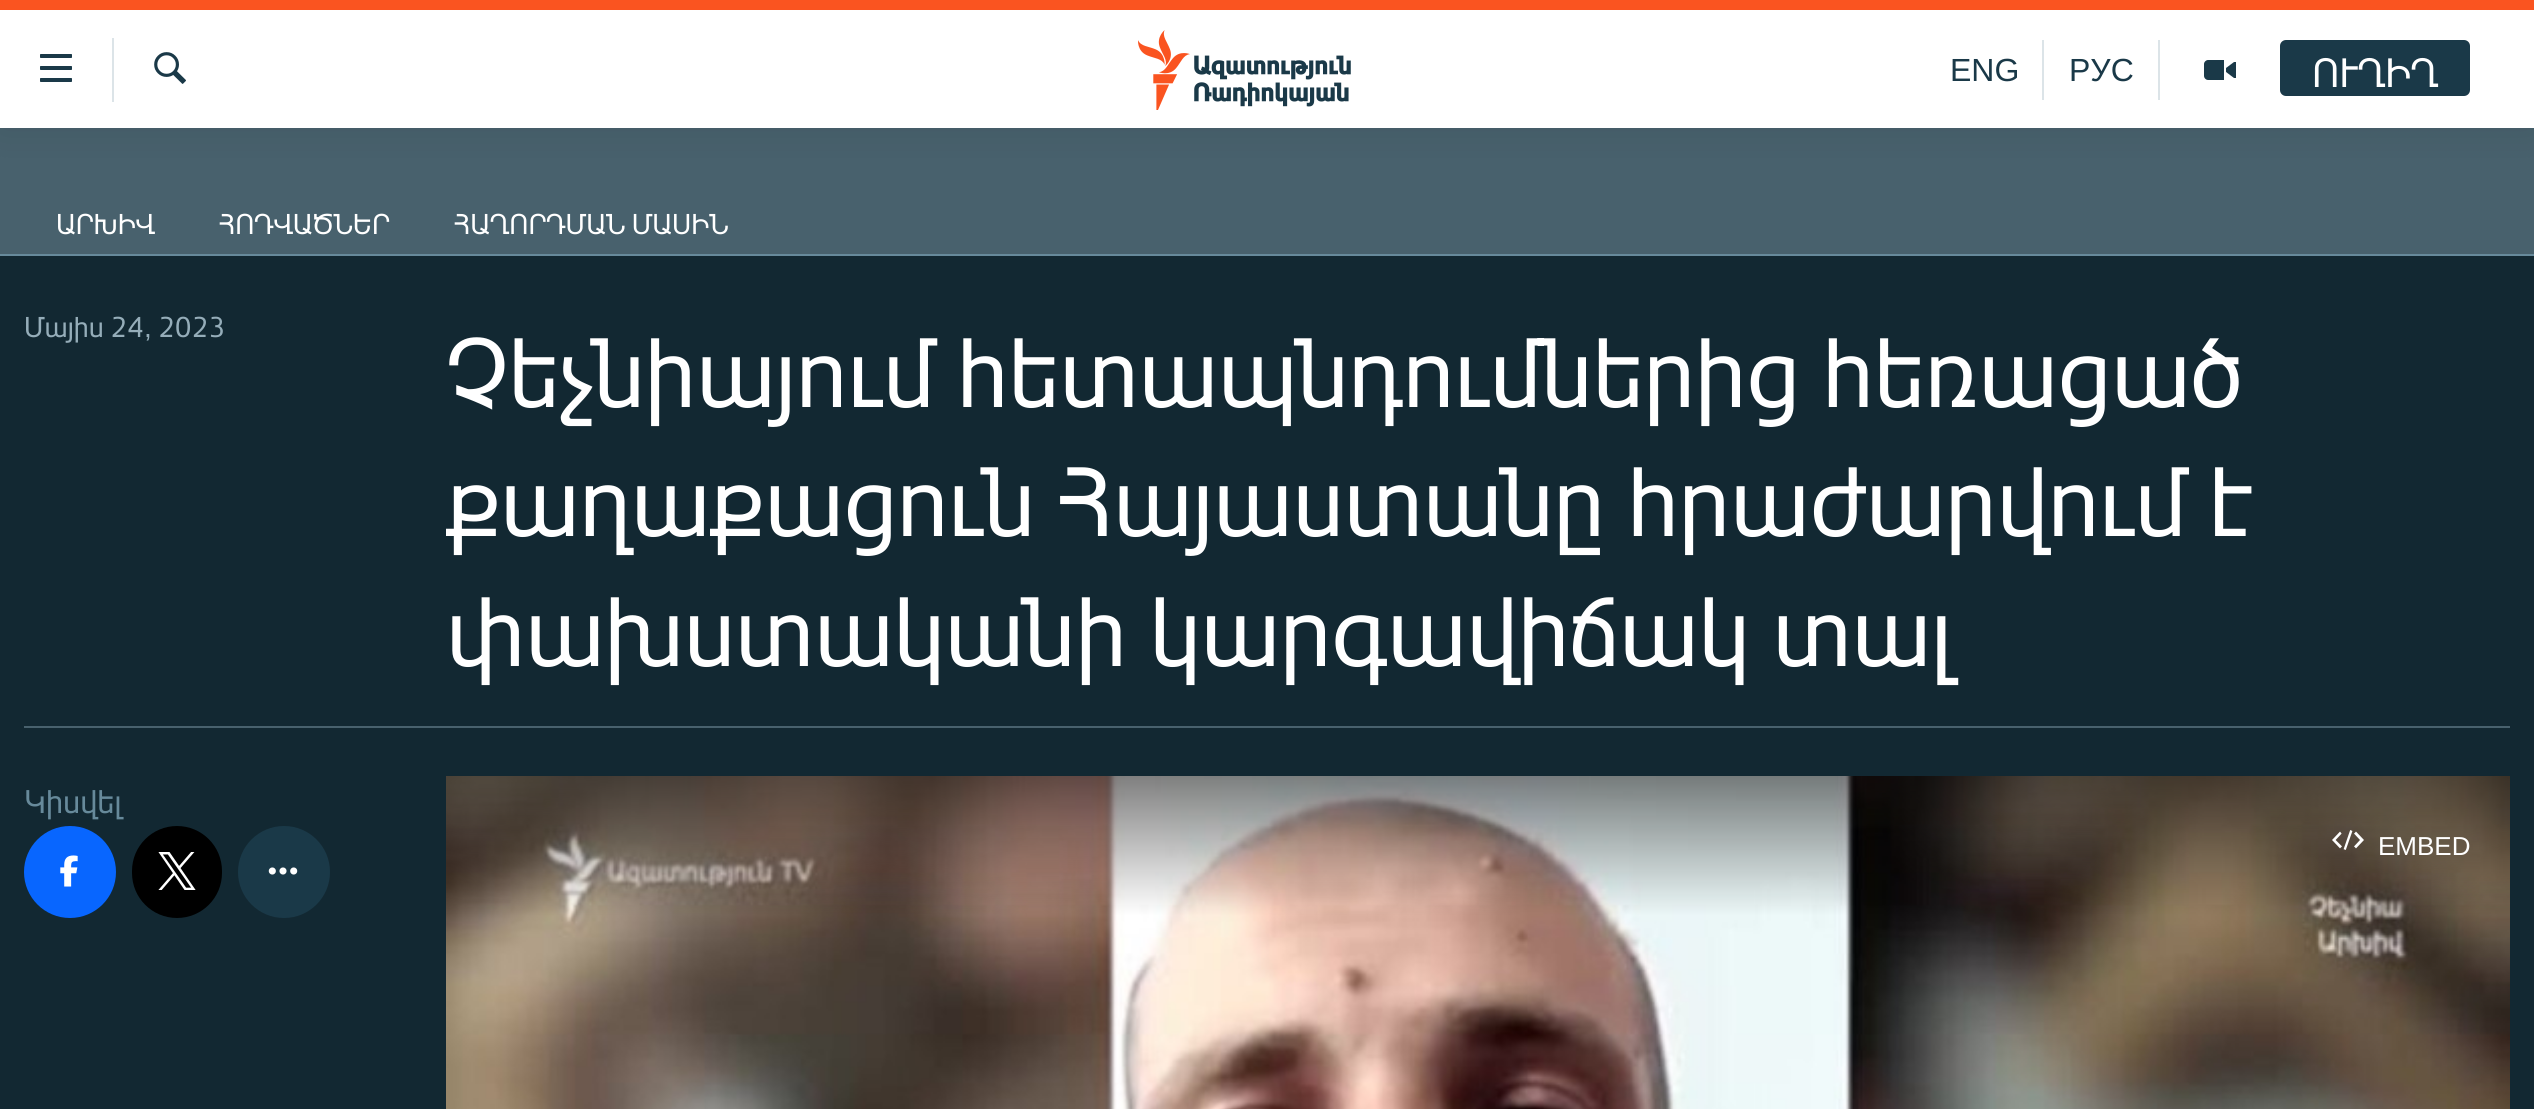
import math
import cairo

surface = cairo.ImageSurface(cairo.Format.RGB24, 2534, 1109)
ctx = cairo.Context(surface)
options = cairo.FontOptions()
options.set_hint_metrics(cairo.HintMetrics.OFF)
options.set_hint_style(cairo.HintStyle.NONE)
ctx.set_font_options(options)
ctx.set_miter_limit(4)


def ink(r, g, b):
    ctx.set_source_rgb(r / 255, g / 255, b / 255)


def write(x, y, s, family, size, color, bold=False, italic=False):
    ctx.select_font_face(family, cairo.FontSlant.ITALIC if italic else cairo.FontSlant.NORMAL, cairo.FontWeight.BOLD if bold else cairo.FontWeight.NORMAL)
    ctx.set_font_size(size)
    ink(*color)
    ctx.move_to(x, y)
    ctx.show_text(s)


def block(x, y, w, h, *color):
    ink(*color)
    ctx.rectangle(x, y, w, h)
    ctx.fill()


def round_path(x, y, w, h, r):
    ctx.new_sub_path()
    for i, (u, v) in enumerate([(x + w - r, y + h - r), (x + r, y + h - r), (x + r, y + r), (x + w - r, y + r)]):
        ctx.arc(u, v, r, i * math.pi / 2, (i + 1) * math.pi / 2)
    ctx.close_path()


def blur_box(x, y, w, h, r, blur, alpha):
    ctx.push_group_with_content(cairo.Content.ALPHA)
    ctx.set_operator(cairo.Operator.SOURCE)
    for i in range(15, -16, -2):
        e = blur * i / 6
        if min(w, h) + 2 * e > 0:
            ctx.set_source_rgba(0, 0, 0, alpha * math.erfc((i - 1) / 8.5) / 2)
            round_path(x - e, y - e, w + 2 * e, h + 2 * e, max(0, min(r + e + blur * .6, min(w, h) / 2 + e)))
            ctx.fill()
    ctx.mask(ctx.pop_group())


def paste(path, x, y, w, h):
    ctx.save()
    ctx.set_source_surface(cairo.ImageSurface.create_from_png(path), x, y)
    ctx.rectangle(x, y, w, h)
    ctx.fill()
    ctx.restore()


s1 = dict(family="Liberation Sans", size=32, color=(26, 57, 72))
s2 = dict(family="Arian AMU", size=40, color=(255, 255, 255))
s3 = dict(family="Arian AMU", size=28, color=(255, 255, 255))
s4 = dict(family="Arian AMU", size=28, color=(149, 173, 185))
s5 = dict(family="Liberation Sans", size=28, color=(149, 173, 185))
s6 = dict(family="Arian AMU", size=96, color=(255, 255, 255))
s7 = dict(family="Arian AMU", size=32, color=(103, 138, 155))
s8 = dict(family="Liberation Sans", size=26, color=(255, 255, 255))

ink(72, 97, 109)
ctx.paint()
ink(0, 0, 0)
blur_box(0, 0, 2534, 128, 0, 20, 0.1)
block(0, 10, 2534, 118, 255, 255, 255)
block(0, 0, 2534, 10, 250, 84, 32)
paste("pic1.png", 40, 54, 32, 28)
block(112, 38, 2, 64, 220, 228, 232)
paste("pic2.png", 154, 52, 32, 32)
paste("pic3.png", 1138, 30, 213, 80)
block(2042, 40, 2, 60, 220, 228, 232)
write(1950, 81, "ENG", **s1)
block(2158, 40, 2, 60, 220, 228, 232)
write(2069, 81, "РУС", **s1)
paste("pic4.png", 2204, 60, 32, 20)
round_path(2280, 40, 190, 56, 6)
ctx.fill()
write(2312, 87, "ՈՒՂԻՂ", **s2)
write(56, 234, "ԱՐԽԻՎ", **s3)
write(219, 234, "ՀՈԴՎԱԾՆԵՐ", **s3)
write(454, 234, "ՀԱՂՈՐԴՄԱՆ ՄԱՍԻՆ", **s3)
block(0, 256, 2534, 853, 18, 40, 50)
block(0, 254, 2534, 2, 103, 138, 155)
write(24, 337, "Մայիս 24", **s4)
write(144, 337, ",", **s5)
write(158, 337, "2023", **s4)
write(446, 407, "Չեչնիայում հետապնդումներից հեռացած", **s6)
write(446, 536, "քաղաքացուն Հայաստանը հրաժարվում է", **s6)
write(446, 666, "փախստականի կարգավիճակ տալ", **s6)
block(24, 726, 2486, 2, 72, 97, 109)
write(24, 813, "Կիսվել", **s7)
ink(8, 102, 255)
ctx.new_path()
ctx.arc(70, 872, 46, 0, 2 * math.pi)
ctx.fill()
paste("pic5.png", 60, 855, 18, 32)
ink(0, 0, 0)
round_path(132, 826, 90, 92, 45)
ctx.fill()
paste("pic6.png", 158, 852, 38, 38)
ink(26, 57, 72)
ctx.arc(284, 872, 46, 0, 2 * math.pi)
ctx.fill()
paste("pic7.png", 268, 867, 30, 8)
paste("pic8.png", 446, 776, 2064, 333)
paste("pic9.png", 2332, 830, 32, 20)
write(2378, 855, "EMBED", **s8)
surface.write_to_png("screenshot.png")
